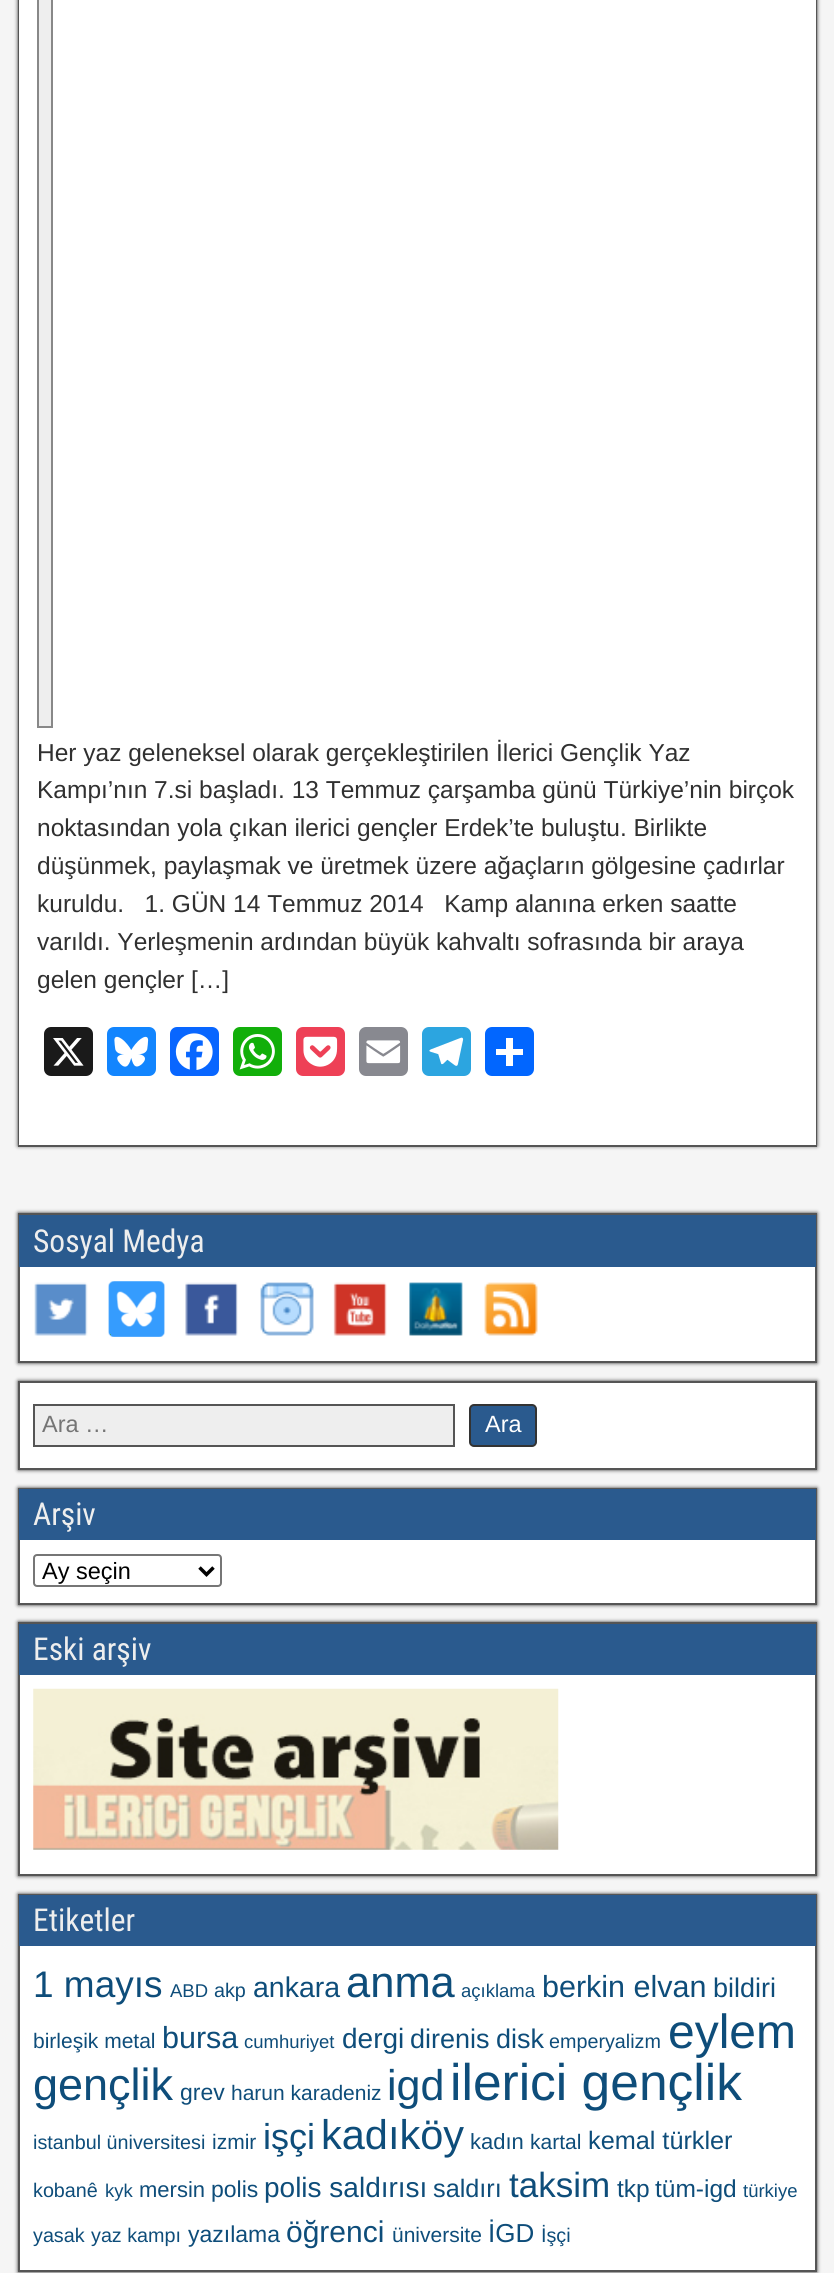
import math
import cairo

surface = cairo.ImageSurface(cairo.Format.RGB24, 834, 2273)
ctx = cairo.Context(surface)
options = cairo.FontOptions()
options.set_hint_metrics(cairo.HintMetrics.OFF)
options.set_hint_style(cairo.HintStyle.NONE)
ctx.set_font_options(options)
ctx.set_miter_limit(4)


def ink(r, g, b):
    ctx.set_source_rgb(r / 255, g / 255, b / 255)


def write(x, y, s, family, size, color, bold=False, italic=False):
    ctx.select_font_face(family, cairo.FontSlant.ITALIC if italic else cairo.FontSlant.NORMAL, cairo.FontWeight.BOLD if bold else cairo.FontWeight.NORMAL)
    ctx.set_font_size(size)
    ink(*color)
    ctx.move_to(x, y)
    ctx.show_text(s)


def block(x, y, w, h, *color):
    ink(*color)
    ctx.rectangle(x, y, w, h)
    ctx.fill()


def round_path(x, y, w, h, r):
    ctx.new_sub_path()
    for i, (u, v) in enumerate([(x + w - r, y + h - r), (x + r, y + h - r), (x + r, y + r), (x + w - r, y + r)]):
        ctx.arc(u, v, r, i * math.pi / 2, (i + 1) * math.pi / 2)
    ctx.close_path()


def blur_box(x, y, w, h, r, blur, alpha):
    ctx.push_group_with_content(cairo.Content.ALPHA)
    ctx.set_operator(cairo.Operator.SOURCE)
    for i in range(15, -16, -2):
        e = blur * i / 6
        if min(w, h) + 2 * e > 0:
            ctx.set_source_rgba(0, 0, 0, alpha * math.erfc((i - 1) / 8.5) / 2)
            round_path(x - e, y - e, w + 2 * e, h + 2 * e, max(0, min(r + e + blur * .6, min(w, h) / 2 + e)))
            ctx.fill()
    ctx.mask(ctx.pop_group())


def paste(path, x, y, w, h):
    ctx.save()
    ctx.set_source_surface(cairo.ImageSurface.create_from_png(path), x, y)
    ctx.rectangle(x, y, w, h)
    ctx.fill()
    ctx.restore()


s1 = dict(family="Arimo", size=24.5, color=(48, 48, 48))
s2 = dict(family="Roboto Condensed", size=31.5, color=(238, 238, 238))
s3 = dict(family="Liberation Sans", size=23.5, color=(117, 117, 117))
s4 = dict(family="Liberation Sans", size=23.5, color=(255, 255, 255))
s5 = dict(family="Liberation Sans", size=23.5, color=(0, 0, 0))
s6 = dict(family="Liberation Sans", size=37, color=(14, 77, 122))
s7 = dict(family="Liberation Sans", size=18.5, color=(14, 77, 122))
s8 = dict(family="Liberation Sans", size=19.75, color=(14, 77, 122))
s9 = dict(family="Liberation Sans", size=28.5, color=(14, 77, 122))
s10 = dict(family="Liberation Sans", size=43.5, color=(14, 77, 122))
s11 = dict(family="Liberation Sans", size=30.5, color=(14, 77, 122))
s12 = dict(family="Liberation Sans", size=27, color=(14, 77, 122))
s13 = dict(family="Liberation Sans", size=21, color=(14, 77, 122))
s14 = dict(family="Liberation Sans", size=28, color=(14, 77, 122))
s15 = dict(family="Liberation Sans", size=48, color=(14, 77, 122))
s16 = dict(family="Liberation Sans", size=45, color=(14, 77, 122))
s17 = dict(family="Liberation Sans", size=23, color=(14, 77, 122))
s18 = dict(family="Liberation Sans", size=43, color=(14, 77, 122))
s19 = dict(family="Liberation Sans", size=51.5, color=(14, 77, 122))
s20 = dict(family="Liberation Sans", size=36, color=(14, 77, 122))
s21 = dict(family="Liberation Sans", size=41.5, color=(14, 77, 122))
s22 = dict(family="Liberation Sans", size=22, color=(14, 77, 122))
s23 = dict(family="Liberation Sans", size=25.25, color=(14, 77, 122))
s24 = dict(family="Liberation Sans", size=35, color=(14, 77, 122))
s25 = dict(family="Liberation Sans", size=24.5, color=(14, 77, 122))
s26 = dict(family="Liberation Sans", size=30, color=(14, 77, 122))
s27 = dict(family="Liberation Sans", size=26, color=(14, 77, 122))

ink(245, 245, 245)
ctx.paint()
ink(51, 51, 51)
blur_box(18, -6, 799, 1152, 0, 2, 1)
block(19, 0, 797, 1145, 255, 255, 255)
ink(85, 85, 85)
ctx.new_path()
ctx.move_to(817, -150)
ctx.line_to(817, 1146)
ctx.line_to(816, 1144)
ctx.line_to(816, -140)
ctx.close_path()
ctx.fill()
block(18, 1145, 799, 2, 85, 85, 85)
ctx.new_path()
ctx.move_to(18, 1146)
ctx.line_to(18, -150)
ctx.line_to(19, -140)
ctx.line_to(19, 1144)
ctx.close_path()
ctx.fill()
ink(238, 238, 238)
ctx.rectangle(38, -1, 14, 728)
ctx.fill_preserve()
ink(136, 136, 136)
ctx.stroke()
write(37, 761, "Her yaz geleneksel olarak gerçekleştirilen İlerici Gençlik Yaz", **s1)
write(37, 798, "Kampı’nın 7.si başladı. 13 Temmuz çarşamba günü Türkiye’nin birçok", **s1)
write(37, 836, "noktasından yola çıkan ilerici gençler Erdek’te buluştu. Birlikte", **s1)
write(37, 874, "düşünmek, paylaşmak ve üretmek üzere ağaçların gölgesine çadırlar", **s1)
write(37, 912, "kuruldu.   1. GÜN 14 Temmuz 2014   Kamp alanına erken saatte", **s1)
write(37, 950, "varıldı. Yerleşmenin ardından büyük kahvaltı sofrasında bir araya", **s1)
write(37, 988, "gelen gençler […]", **s1)
ink(26, 26, 26)
round_path(44, 1027, 49, 49, 7)
ctx.fill()
paste("pic1.png", 53, 1038, 31, 28)
ink(18, 133, 254)
round_path(107, 1027, 49, 49, 7)
ctx.fill()
paste("pic2.png", 114, 1036, 35, 31)
ink(8, 102, 255)
round_path(170, 1027, 49, 49, 7)
ctx.fill()
paste("pic3.png", 175, 1033, 38, 37)
ink(18, 175, 10)
round_path(233, 1027, 49, 49, 7)
ctx.fill()
paste("pic4.png", 239, 1034, 36, 36)
ink(238, 64, 86)
round_path(296, 1027, 49, 49, 7)
ctx.fill()
paste("pic5.png", 303, 1036, 35, 31)
ink(136, 137, 144)
round_path(359, 1027, 49, 49, 7)
ctx.fill()
paste("pic6.png", 366, 1040, 35, 24)
ink(44, 165, 224)
round_path(422, 1027, 49, 49, 7)
ctx.fill()
paste("pic7.png", 429, 1037, 35, 29)
ink(1, 102, 255)
round_path(485, 1027, 49, 49, 7)
ctx.fill()
block(506, 1038, 7, 28, 255, 255, 255)
block(496, 1049, 27, 6, 255, 255, 255)
ink(51, 51, 51)
blur_box(18, 1213, 799, 150, 0, 2, 1)
block(20, 1267, 795, 94, 255, 255, 255)
ctx.rectangle(19, 1214, 797, 148)
ink(85, 85, 85)
ctx.stroke()
block(19, 1215, 797, 52, 42, 90, 142)
write(33, 1252, "Sosyal Medya", **s2)
paste("pic8.png", 34, 1282, 54, 54)
paste("pic9.png", 108, 1281, 57, 56)
paste("pic10.png", 185, 1282, 53, 54)
paste("pic11.png", 260, 1282, 54, 54)
paste("pic12.png", 333, 1282, 54, 54)
paste("pic13.png", 409, 1282, 54, 54)
paste("pic14.png", 484, 1282, 54, 54)
ink(51, 51, 51)
blur_box(18, 1381, 799, 89, 0, 2, 1)
ink(255, 255, 255)
ctx.rectangle(19, 1382, 797, 87)
ctx.fill_preserve()
ink(85, 85, 85)
ctx.stroke()
ink(238, 238, 238)
ctx.rectangle(34, 1405, 420, 41)
ctx.fill_preserve()
ink(85, 85, 85)
ctx.stroke()
write(42, 1432, "Ara …", **s3)
ink(42, 90, 142)
round_path(470, 1405, 66, 41, 4)
ctx.fill_preserve()
ink(51, 51, 51)
ctx.stroke()
write(485, 1432, "Ara", **s4)
ink(51, 51, 51)
blur_box(18, 1488, 799, 117, 0, 2, 1)
block(20, 1540, 795, 63, 255, 255, 255)
ctx.rectangle(19, 1489, 797, 115)
ink(85, 85, 85)
ctx.stroke()
block(19, 1489, 797, 51, 42, 90, 142)
write(33, 1525, "Arşiv", **s2)
round_path(34, 1555, 187, 31, 3)
ink(118, 118, 118)
ctx.stroke()
ctx.new_path()
ctx.move_to(199.5, 1567.5)
ctx.line_to(206.5, 1574.5)
ctx.line_to(213.5, 1567.5)
ink(0, 0, 0)
ctx.set_line_width(3.5)
ctx.stroke()
write(42, 1579, "Ay seçin", **s5)
ink(51, 51, 51)
blur_box(18, 1622, 799, 254, 0, 2, 1)
block(20, 1675, 795, 199, 255, 255, 255)
ctx.rectangle(19, 1623, 797, 252)
ink(85, 85, 85)
ctx.set_line_width(2)
ctx.stroke()
block(19, 1624, 797, 51, 42, 90, 142)
write(33, 1660, "Eski arşiv", **s2)
paste("pic15.png", 33, 1688, 526, 162)
ink(51, 51, 51)
blur_box(18, 1894, 799, 378, 0, 2, 1)
block(20, 1946, 795, 324, 255, 255, 255)
ctx.rectangle(19, 1895, 797, 376)
ink(85, 85, 85)
ctx.stroke()
block(19, 1895, 797, 51, 42, 90, 142)
write(33, 1931, "Etiketler", **s2)
write(33, 1997, "1 mayıs", **s6)
write(170, 1997, "ABD", **s7)
write(214, 1997, "akp", **s8)
write(253, 1997, "ankara", **s9)
write(346, 1997, "anma", **s10)
write(461, 1997, "açıklama", **s7)
write(542, 1997, "berkin elvan", **s11)
write(713, 1997, "bildiri", **s12)
write(33, 2048, "birleşik metal", **s13)
write(162, 2048, "bursa", **s11)
write(244, 2048, "cumhuriyet", **s7)
write(342, 2048, "dergi", **s14)
write(410, 2048, "direnis", **s12)
write(496, 2048, "disk", **s12)
write(549, 2048, "emperyalizm", **s8)
write(668, 2048, "eylem", **s15)
write(33, 2100, "gençlik", **s16)
write(180, 2100, "grev", **s17)
write(231, 2100, "harun karadeniz", **s13)
write(387, 2100, "igd", **s18)
write(450, 2100, "ilerici gençlik", **s19)
write(33, 2149, "istanbul üniversitesi", **s8)
write(212, 2149, "izmir", **s13)
write(263, 2149, "işçi", **s20)
write(321, 2149, "kadıköy", **s21)
write(470, 2149, "kadın", **s22)
write(530, 2149, "kartal", **s13)
write(588, 2149, "kemal türkler", **s23)
write(33, 2197, "kobanê", **s8)
write(105, 2197, "kyk", **s7)
write(139, 2197, "mersin", **s22)
write(211, 2197, "polis", **s17)
write(264, 2197, "polis saldırısı", **s14)
write(433, 2197, "saldırı", **s23)
write(509, 2197, "taksim", **s24)
write(617, 2197, "tkp", **s25)
write(655, 2197, "tüm-igd", **s25)
write(743, 2197, "türkiye", **s7)
write(33, 2242, "yasak", **s8)
write(91, 2242, "yaz kampı", **s8)
write(188, 2242, "yazılama", **s17)
write(286, 2242, "öğrenci", **s26)
write(392, 2242, "üniversite", **s13)
write(488, 2242, "İGD", **s27)
write(541, 2242, "İşçi", **s8)
surface.write_to_png("screenshot.png")
